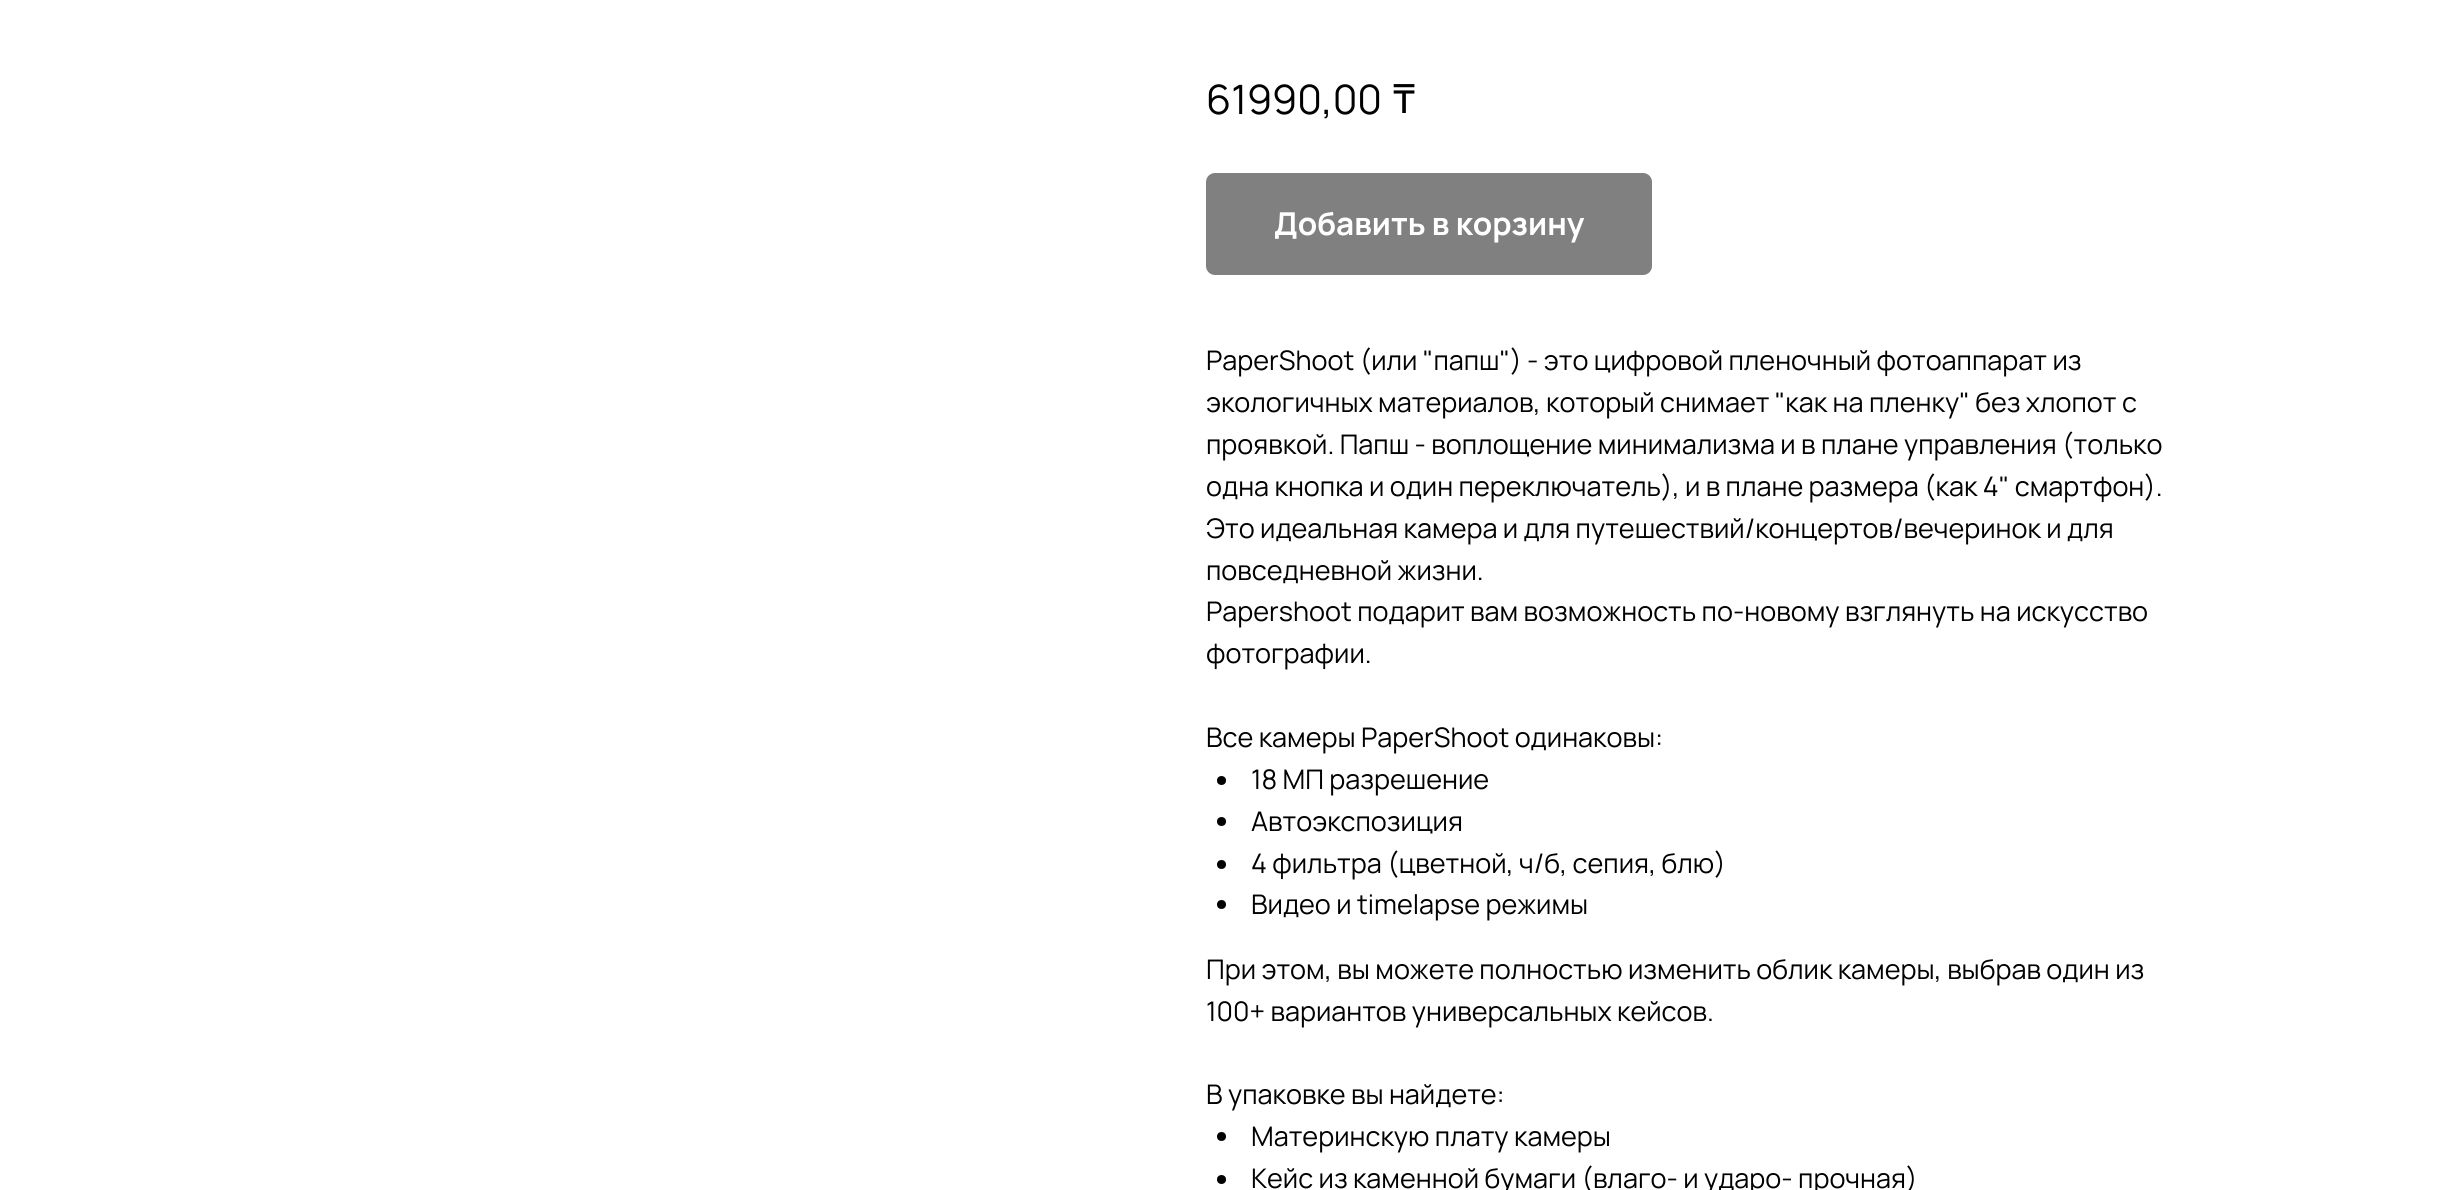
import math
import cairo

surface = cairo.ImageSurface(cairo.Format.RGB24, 2455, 1190)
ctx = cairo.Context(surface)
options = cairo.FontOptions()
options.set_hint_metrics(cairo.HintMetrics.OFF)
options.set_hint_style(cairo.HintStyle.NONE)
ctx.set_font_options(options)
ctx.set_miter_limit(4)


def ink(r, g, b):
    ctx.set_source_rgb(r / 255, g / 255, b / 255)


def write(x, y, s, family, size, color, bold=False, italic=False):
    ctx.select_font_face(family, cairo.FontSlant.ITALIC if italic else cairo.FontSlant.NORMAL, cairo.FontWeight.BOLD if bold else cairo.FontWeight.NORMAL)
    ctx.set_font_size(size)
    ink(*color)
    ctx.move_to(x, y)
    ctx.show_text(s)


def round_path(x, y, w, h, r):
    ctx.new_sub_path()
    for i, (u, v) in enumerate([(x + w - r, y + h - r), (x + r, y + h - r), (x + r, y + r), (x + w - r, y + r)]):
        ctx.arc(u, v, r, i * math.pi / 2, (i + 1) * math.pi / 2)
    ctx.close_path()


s1 = dict(family="Manrope", size=40.5, color=(0, 0, 0))
s2 = dict(family="Noto Sans", size=40.5, color=(0, 0, 0))
s3 = dict(family="Manrope", size=31.5, color=(255, 255, 255), bold=True)
s4 = dict(family="Manrope", size=27, color=(0, 0, 0))

ink(255, 255, 255)
ctx.paint()
write(1206, 114, "61990,00", **s1)
write(1393, 113, "₸", **s2)
ink(128, 128, 128)
round_path(1206, 173, 446, 102, 9)
ctx.fill()
write(1274, 235, "Добавить в корзину", **s3)
write(1206, 370, "PaperShoot (или \"папш\") - это цифровой пленочный фотоаппарат из", **s4)
write(1206, 412, "экологичных материалов, который снимает \"как на пленку\" без хлопот с", **s4)
write(1206, 454, "проявкой. Папш - воплощение минимализма и в плане управления (только", **s4)
write(1206, 496, "одна кнопка и один переключатель), и в плане размера (как 4\" смартфон).", **s4)
write(1206, 538, "Это идеальная камера и для путешествий/концертов/вечеринок и для", **s4)
write(1206, 580, "повседневной жизни.", **s4)
write(1206, 621, "Papershoot подарит вам возможность по-новому взглянуть на искусство", **s4)
write(1206, 663, "фотографии.", **s4)
write(1206, 747, "Все камеры PaperShoot одинаковы:", **s4)
ctx.new_path()
ctx.arc(1221.5, 780.5, 4.5, 0, 2 * math.pi)
ctx.fill()
write(1251, 789, "18 МП разрешение", **s4)
ctx.new_path()
ctx.arc(1221.5, 821.5, 4.5, 0, 2 * math.pi)
ctx.fill()
write(1251, 831, "Автоэкспозиция", **s4)
ctx.new_path()
ctx.arc(1221.5, 864.5, 4.5, 0, 2 * math.pi)
ctx.fill()
write(1251, 873, "4 фильтра (цветной, ч/б, сепия, блю)", **s4)
ctx.new_path()
ctx.arc(1221.5, 904.5, 4.5, 0, 2 * math.pi)
ctx.fill()
write(1251, 914, "Видео и timelapse режимы", **s4)
write(1206, 979, "При этом, вы можете полностью изменить облик камеры, выбрав один из", **s4)
write(1206, 1021, "100+ вариантов универсальных кейсов.", **s4)
write(1206, 1104, "В упаковке вы найдете:", **s4)
ctx.new_path()
ctx.arc(1221.5, 1136.5, 4.5, 0, 2 * math.pi)
ctx.fill()
write(1251, 1146, "Материнскую плату камеры", **s4)
ctx.new_path()
ctx.arc(1221.5, 1179.5, 4.5, 0, 2 * math.pi)
ctx.fill()
write(1251, 1188, "Кейс из каменной бумаги (влаго- и ударо- прочная)", **s4)
surface.write_to_png("screenshot.png")
